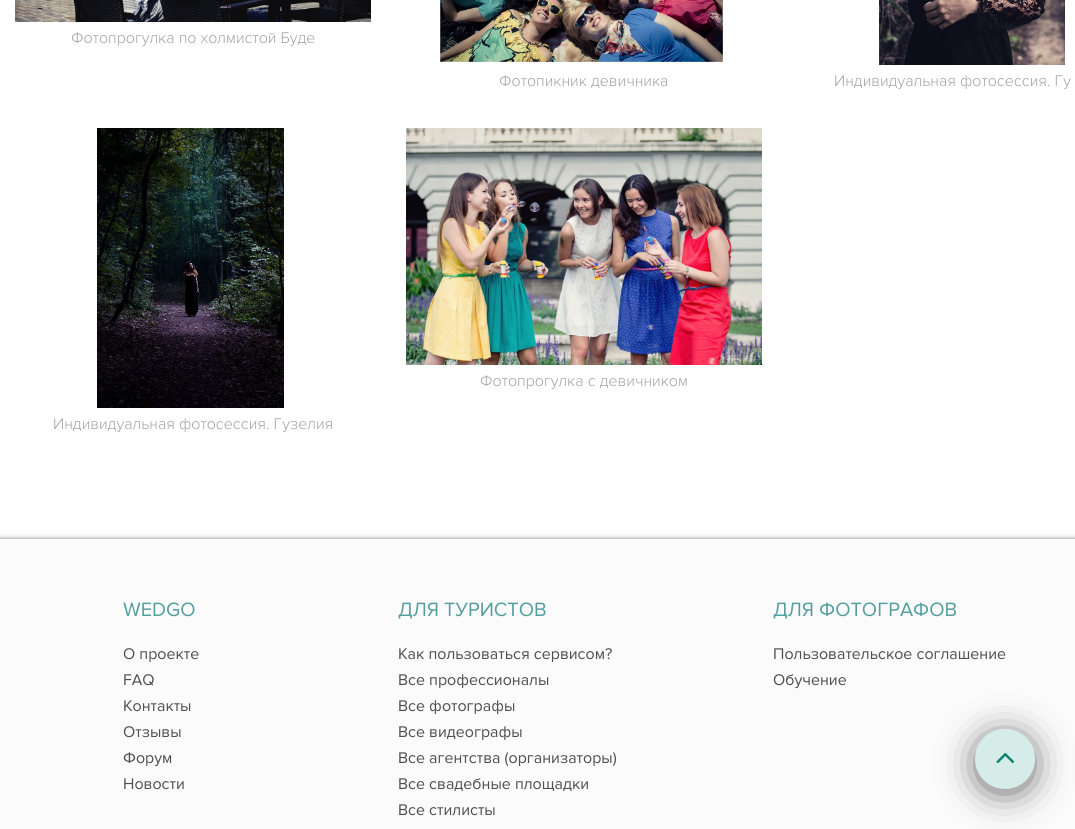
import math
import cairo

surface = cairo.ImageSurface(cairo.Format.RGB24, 1075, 829)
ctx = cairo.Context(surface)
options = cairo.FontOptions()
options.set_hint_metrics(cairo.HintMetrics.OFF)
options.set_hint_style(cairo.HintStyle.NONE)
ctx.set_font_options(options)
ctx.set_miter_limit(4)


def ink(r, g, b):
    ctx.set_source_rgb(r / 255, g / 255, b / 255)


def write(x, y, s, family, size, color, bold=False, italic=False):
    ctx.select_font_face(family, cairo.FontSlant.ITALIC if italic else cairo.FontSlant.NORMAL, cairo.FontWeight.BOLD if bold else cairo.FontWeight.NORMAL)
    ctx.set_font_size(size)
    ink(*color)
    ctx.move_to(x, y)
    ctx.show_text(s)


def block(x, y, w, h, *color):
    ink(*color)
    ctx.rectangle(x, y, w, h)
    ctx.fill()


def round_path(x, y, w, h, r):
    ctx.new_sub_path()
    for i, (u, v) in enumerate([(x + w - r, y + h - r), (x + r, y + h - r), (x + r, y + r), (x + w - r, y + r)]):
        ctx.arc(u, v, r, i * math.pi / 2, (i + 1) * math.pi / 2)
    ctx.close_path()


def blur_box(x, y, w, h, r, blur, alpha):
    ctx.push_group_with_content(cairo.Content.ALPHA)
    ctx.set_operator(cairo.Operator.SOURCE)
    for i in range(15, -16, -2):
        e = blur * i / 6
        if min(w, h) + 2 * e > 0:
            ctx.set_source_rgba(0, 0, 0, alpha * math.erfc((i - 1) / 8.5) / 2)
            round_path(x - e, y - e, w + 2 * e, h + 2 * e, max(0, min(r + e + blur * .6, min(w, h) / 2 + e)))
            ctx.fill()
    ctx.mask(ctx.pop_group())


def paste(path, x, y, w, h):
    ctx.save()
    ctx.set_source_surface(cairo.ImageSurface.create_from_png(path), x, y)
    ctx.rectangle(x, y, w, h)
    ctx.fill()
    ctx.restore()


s1 = dict(family="Proxima Nova Light", size=16, color=(163, 162, 162))
s2 = dict(family="Proxima Nova", size=20, color=(85, 158, 158))
s3 = dict(family="Proxima Nova", size=16, color=(79, 79, 79))

ink(255, 255, 255)
ctx.paint()
paste("pic1.png", 15, 0, 356, 22)
write(71, 43, "Фотопрогулка по холмистой Буде", **s1)
paste("pic2.png", 440, 0, 283, 64)
write(499, 86, "Фотопикник девичника", **s1)
paste("pic3.png", 879, 0, 186, 65)
write(834, 86, "Индивидуальная фотосессия. Гу", **s1)
paste("pic4.png", 406, 128, 356, 237)
write(480, 386, "Фотопрогулка с девичником", **s1)
paste("pic5.png", 97, 128, 187, 280)
write(53, 429, "Индивидуальная фотосессия. Гузелия", **s1)
ink(119, 119, 119)
blur_box(0, 539, 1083, 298, 0, 2.5, 1)
block(0, 539, 1075, 290, 251, 251, 251)
write(123, 616, "WEDGO", **s2)
write(123, 659, "О проекте", **s3)
write(123, 685, "FAQ", **s3)
write(123, 711, "Контакты", **s3)
write(123, 737, "Отзывы", **s3)
write(123, 763, "Форум", **s3)
write(123, 789, "Новости", **s3)
write(398, 616, "ДЛЯ ТУРИСТОВ", **s2)
write(398, 659, "Как пользоваться сервисом?", **s3)
write(398, 685, "Все профессионалы", **s3)
write(398, 711, "Все фотографы", **s3)
write(398, 737, "Все видеографы", **s3)
write(398, 763, "Все агентства (организаторы)", **s3)
write(398, 789, "Все свадебные площадки", **s3)
write(398, 815, "Все стилисты", **s3)
write(773, 616, "ДЛЯ ФОТОГРАФОВ", **s2)
write(773, 659, "Пользовательское соглашение", **s3)
write(773, 685, "Обучение", **s3)
ink(51, 51, 51)
blur_box(983, 742, 44, 44, 22, 20, 1)
ink(214, 236, 232)
ctx.arc(1005, 759, 30, 0, 2 * math.pi)
ctx.fill()
ctx.save()
round_path(975, 729, 60, 60, 30)
ctx.clip()
block(975, 729, 60, 23, 214, 236, 232)
ctx.restore()
paste("pic6.png", 996, 752, 19, 12)
surface.write_to_png("screenshot.png")
